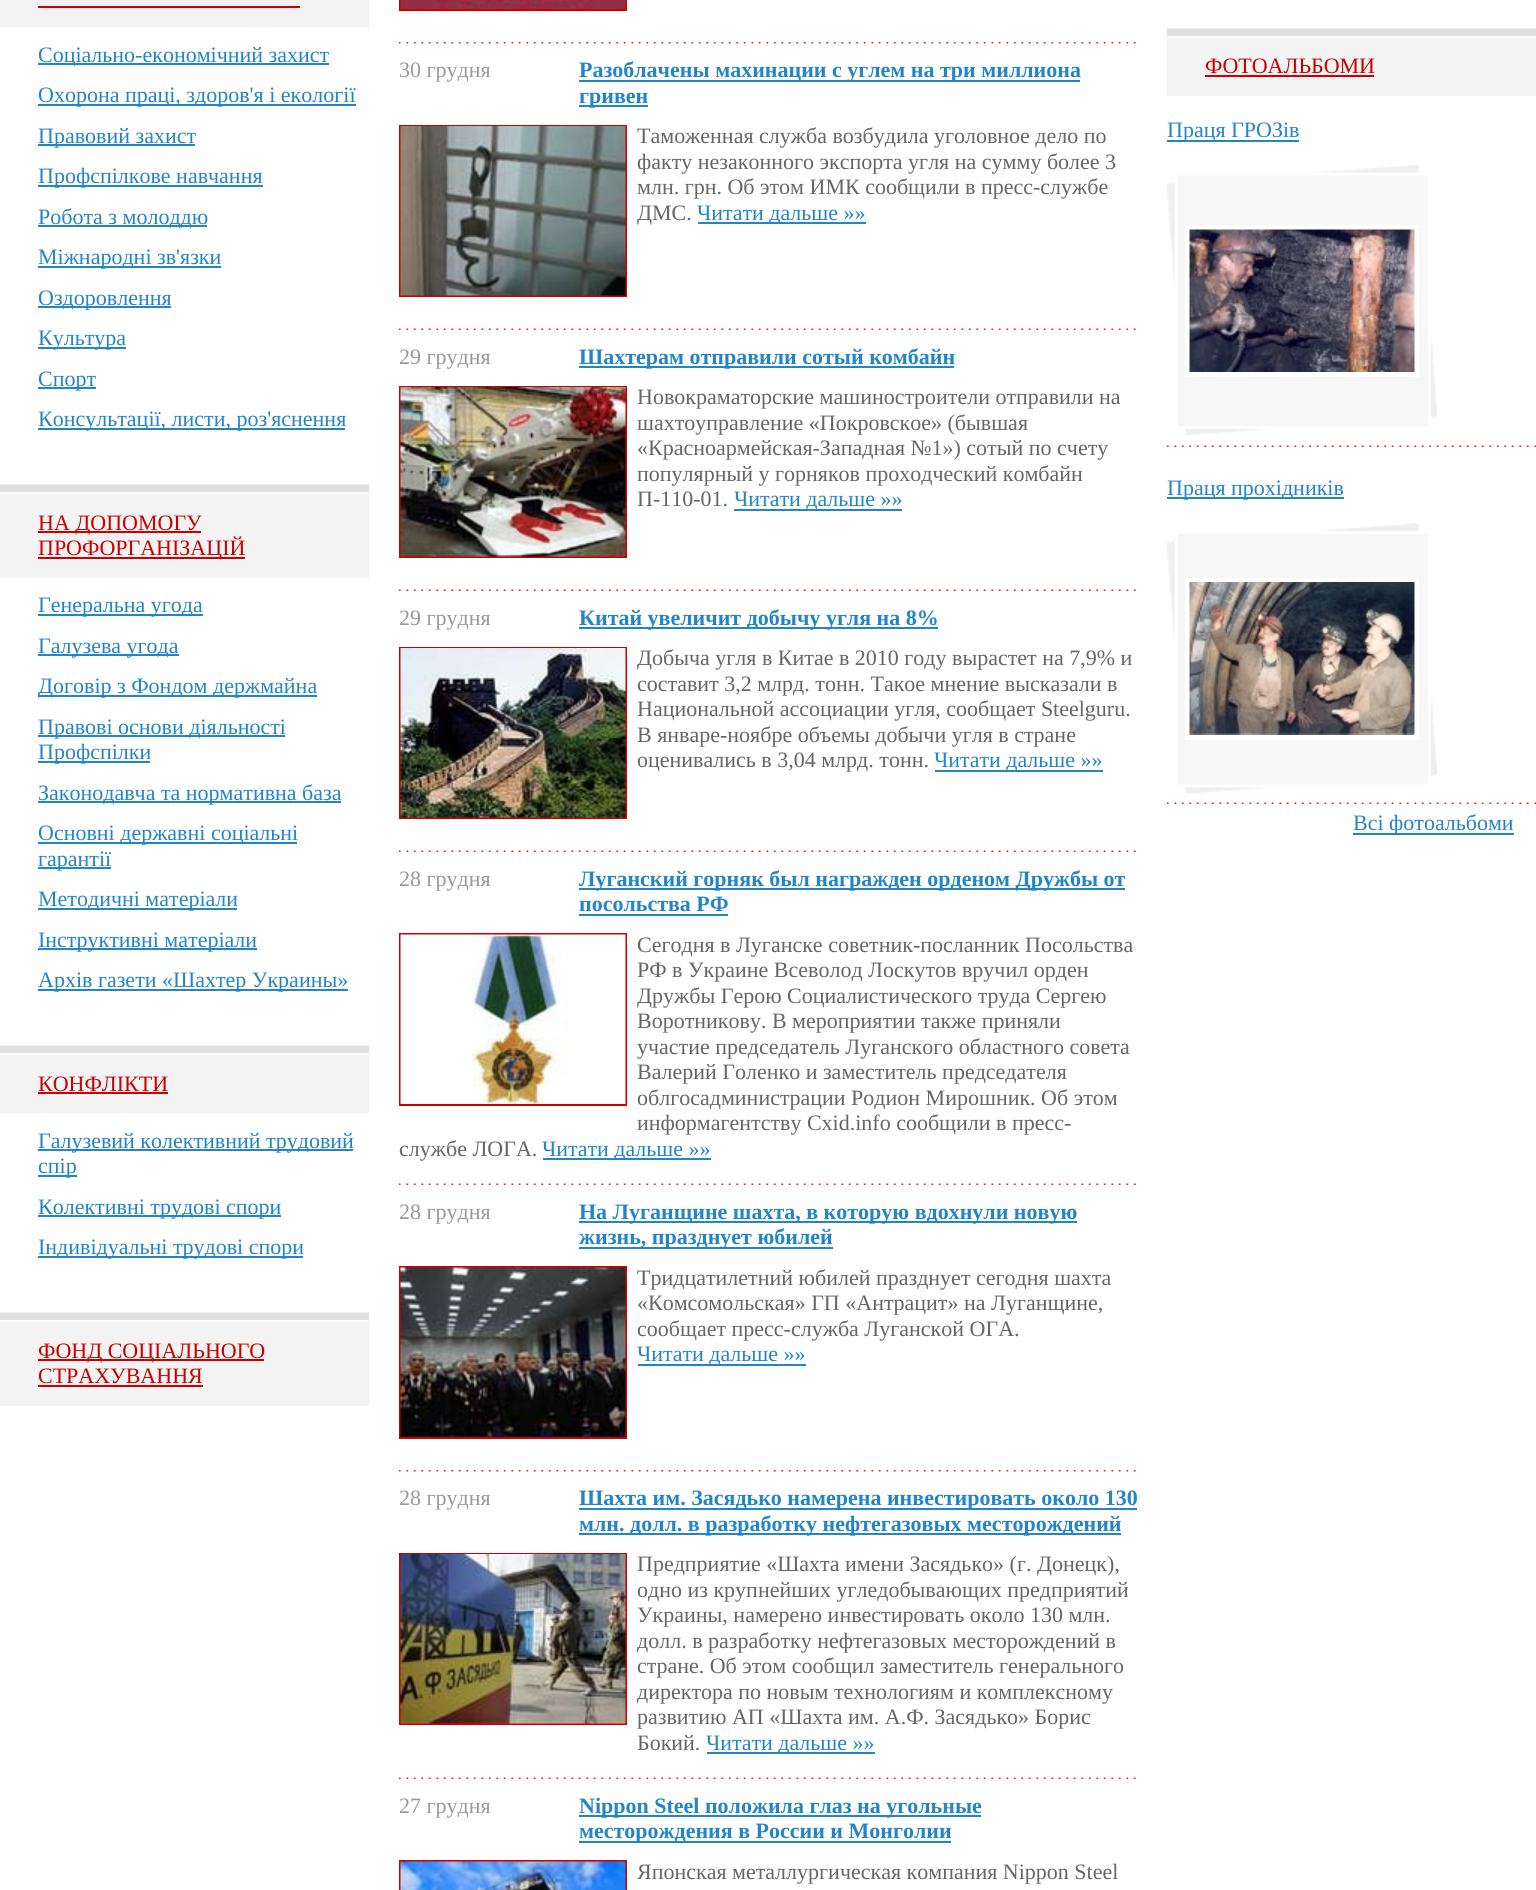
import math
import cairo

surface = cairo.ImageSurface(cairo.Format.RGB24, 1536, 1890)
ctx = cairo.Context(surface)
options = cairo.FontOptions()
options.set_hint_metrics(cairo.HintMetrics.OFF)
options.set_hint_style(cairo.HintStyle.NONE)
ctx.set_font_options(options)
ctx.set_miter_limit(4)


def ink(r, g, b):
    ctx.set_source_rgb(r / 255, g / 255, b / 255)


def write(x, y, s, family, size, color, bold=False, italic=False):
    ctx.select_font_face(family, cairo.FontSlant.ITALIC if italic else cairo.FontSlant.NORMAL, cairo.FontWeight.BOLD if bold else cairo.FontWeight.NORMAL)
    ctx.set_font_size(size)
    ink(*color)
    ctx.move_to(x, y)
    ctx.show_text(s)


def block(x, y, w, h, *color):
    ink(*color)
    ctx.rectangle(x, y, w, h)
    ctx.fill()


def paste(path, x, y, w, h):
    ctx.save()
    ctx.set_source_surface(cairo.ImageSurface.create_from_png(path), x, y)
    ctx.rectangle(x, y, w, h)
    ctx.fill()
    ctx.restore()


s1 = dict(family="Liberation Serif", size=22, color=(34, 133, 200))
s2 = dict(family="Liberation Serif", size=22, color=(204, 0, 0))
s3 = dict(family="Liberation Serif", size=22, color=(153, 153, 153))
s4 = dict(family="Liberation Serif", size=22, color=(34, 133, 200), bold=True)
s5 = dict(family="Liberation Serif", size=22, color=(102, 102, 102))

ink(255, 255, 255)
ctx.paint()
block(0, 0, 369, 27, 243, 243, 243)
block(38, 6, 262, 2, 204, 0, 0)
block(38, 63, 291, 2, 34, 133, 200)
write(38, 62, "Соціально-економічний захист", **s1)
block(38, 104, 318, 2, 34, 133, 200)
write(38, 102, "Охорона праці, здоров'я і екології", **s1)
block(38, 144, 157, 2, 34, 133, 200)
write(38, 143, "Правовий захист", **s1)
block(38, 185, 225, 2, 34, 133, 200)
write(38, 183, "Профспілкове навчання", **s1)
block(38, 225, 169, 2, 34, 133, 200)
write(38, 224, "Робота з молоддю", **s1)
block(38, 266, 183, 2, 34, 133, 200)
write(38, 264, "Міжнародні зв'язки", **s1)
block(38, 306, 133, 2, 34, 133, 200)
write(38, 305, "Оздоровлення", **s1)
block(38, 347, 88, 2, 34, 133, 200)
write(38, 345, "Культура", **s1)
block(38, 387, 58, 2, 34, 133, 200)
write(38, 386, "Спорт", **s1)
block(38, 428, 307, 2, 34, 133, 200)
write(38, 426, "Консультації, листи, роз'яснення", **s1)
block(0, 493, 369, 85, 243, 243, 243)
paste("pic1.png", 0, 484, 369, 10)
block(38, 531, 163, 2, 204, 0, 0)
write(38, 530, "НА ДОПОМОГУ", **s2)
block(38, 557, 207, 2, 204, 0, 0)
write(38, 555, "ПРОФОРГАНІЗАЦІЙ", **s2)
block(38, 614, 165, 2, 34, 133, 200)
write(38, 612, "Генеральна угода", **s1)
block(38, 654, 141, 2, 34, 133, 200)
write(38, 653, "Галузева угода", **s1)
block(38, 695, 279, 2, 34, 133, 200)
write(38, 693, "Договір з Фондом держмайна", **s1)
block(38, 735, 247, 2, 34, 133, 200)
write(38, 734, "Правові основи діяльності", **s1)
block(38, 761, 112, 2, 34, 133, 200)
write(38, 759, "Профспілки", **s1)
block(38, 801, 303, 2, 34, 133, 200)
write(38, 800, "Законодавча та нормативна база", **s1)
block(38, 842, 259, 2, 34, 133, 200)
write(38, 840, "Основні державні соціальні", **s1)
block(38, 867, 73, 2, 34, 133, 200)
write(38, 866, "гарантії", **s1)
block(38, 908, 199, 2, 34, 133, 200)
write(38, 906, "Методичні матеріали", **s1)
block(38, 948, 219, 2, 34, 133, 200)
write(38, 947, "Інструктивні матеріали", **s1)
block(38, 989, 310, 2, 34, 133, 200)
write(38, 987, "Архів газети «Шахтер Украины»", **s1)
block(0, 1054, 369, 59, 243, 243, 243)
paste("pic1.png", 0, 1045, 369, 10)
write(38, 1091, "КОНФЛІКТИ", **s2)
block(38, 1092, 130, 2, 204, 0, 0)
block(38, 1149, 315, 2, 34, 133, 200)
write(38, 1148, "Галузевий колективний трудовий", **s1)
block(38, 1175, 39, 2, 34, 133, 200)
write(38, 1173, "спір", **s1)
block(38, 1215, 243, 2, 34, 133, 200)
write(38, 1214, "Колективні трудові спори", **s1)
block(38, 1256, 265, 2, 34, 133, 200)
write(38, 1254, "Індивідуальні трудові спори", **s1)
block(0, 1321, 369, 85, 243, 243, 243)
paste("pic1.png", 0, 1312, 369, 10)
block(38, 1359, 226, 2, 204, 0, 0)
write(38, 1358, "ФОНД СОЦІАЛЬНОГО", **s2)
write(38, 1383, "СТРАХУВАННЯ", **s2)
block(38, 1385, 165, 2, 204, 0, 0)
paste("pic2.png", 399, 42, 737, 2)
ctx.rectangle(400, -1, 226, 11)
ctx.stroke()
paste("pic3.png", 400, 0, 226, 9)
paste("pic4.png", 399, 328, 737, 2)
write(399, 77, "30 грудня", **s3)
block(579, 80, 501, 2, 34, 133, 200)
write(579, 77, "Разоблачены махинации с углем на три миллиона", **s4)
block(579, 105, 69, 2, 34, 133, 200)
write(579, 103, "гривен", **s4)
ctx.rectangle(400, 126, 226, 170)
ink(204, 0, 0)
ctx.stroke()
paste("pic5.png", 400, 126, 226, 170)
write(637, 143, "Таможенная служба возбудила уголовное дело по", **s5)
write(637, 169, "факту незаконного экспорта угля на сумму более 3", **s5)
write(637, 194, "млн. грн. Об этом ИМК сообщили в пресс-службе", **s5)
write(637, 220, "ДМС.", **s5)
block(698, 222, 168, 2, 34, 133, 200)
write(697, 220, "Читати дальше »»", **s1)
paste("pic4.png", 399, 589, 737, 2)
write(399, 364, "29 грудня", **s3)
block(579, 366, 375, 2, 34, 133, 200)
write(579, 364, "Шахтерам отправили сотый комбайн", **s4)
ctx.rectangle(400, 387, 226, 170)
ink(204, 0, 0)
ctx.stroke()
paste("pic6.png", 400, 387, 226, 170)
write(637, 404, "Новокраматорские машиностроители отправили на", **s5)
write(637, 430, "шахтоуправление «Покровское» (бывшая", **s5)
write(637, 455, "«Красноармейская-Западная №1») сотый по счету", **s5)
write(637, 481, "популярный у горняков проходческий комбайн", **s5)
write(637, 506, "П-110-01.", **s5)
block(734, 509, 168, 2, 34, 133, 200)
write(734, 506, "Читати дальше »»", **s1)
paste("pic4.png", 399, 850, 737, 2)
write(399, 625, "29 грудня", **s3)
block(579, 627, 359, 2, 34, 133, 200)
write(579, 625, "Китай увеличит добычу угля на 8%", **s4)
ctx.rectangle(400, 648, 226, 170)
ink(204, 0, 0)
ctx.stroke()
paste("pic7.png", 400, 648, 226, 170)
write(637, 665, "Добыча угля в Китае в 2010 году вырастет на 7,9% и", **s5)
write(637, 691, "составит 3,2 млрд. тонн. Такое мнение высказали в", **s5)
write(637, 716, "Национальной ассоциации угля, сообщает Steelguru.", **s5)
write(637, 742, "В январе-ноябре объемы добычи угля в стране", **s5)
write(637, 767, "оценивались в 3,04 млрд. тонн.", **s5)
block(935, 770, 168, 2, 34, 133, 200)
write(934, 767, "Читати дальше »»", **s1)
paste("pic4.png", 399, 1183, 737, 2)
write(399, 886, "28 грудня", **s3)
block(579, 888, 546, 2, 34, 133, 200)
write(579, 886, "Луганский горняк был награжден орденом Дружбы от", **s4)
write(579, 911, "посольства РФ", **s4)
block(579, 914, 149, 2, 34, 133, 200)
ctx.rectangle(400, 934, 226, 171)
ink(204, 0, 0)
ctx.stroke()
paste("pic8.png", 400, 934, 226, 170)
write(637, 952, "Сегодня в Луганске советник-посланник Посольства", **s5)
write(637, 977, "РФ в Украине Всеволод Лоскутов вручил орден", **s5)
write(637, 1003, "Дружбы Герою Социалистического труда Сергею", **s5)
write(637, 1028, "Воротникову. В мероприятии также приняли", **s5)
write(637, 1054, "участие председатель Луганского областного совета", **s5)
write(637, 1079, "Валерий Голенко и заместитель председателя", **s5)
write(637, 1105, "облгосадминистрации Родион Мирошник. Об этом", **s5)
write(637, 1130, "информагентству Cxid.info сообщили в пресс-", **s5)
write(399, 1156, "службе ЛОГА.", **s5)
block(543, 1158, 168, 2, 34, 133, 200)
write(542, 1156, "Читати дальше »»", **s1)
paste("pic2.png", 399, 1470, 737, 2)
write(399, 1219, "28 грудня", **s3)
block(579, 1221, 498, 2, 34, 133, 200)
write(579, 1219, "На Луганщине шахта, в которую вдохнули новую", **s4)
block(579, 1247, 254, 2, 34, 133, 200)
write(579, 1244, "жизнь, празднует юбилей", **s4)
ctx.rectangle(400, 1267, 226, 171)
ink(204, 0, 0)
ctx.stroke()
paste("pic9.png", 400, 1267, 226, 170)
write(637, 1285, "Тридцатилетний юбилей празднует сегодня шахта", **s5)
write(637, 1310, "«Комсомольская» ГП «Антрацит» на Луганщине,", **s5)
write(637, 1336, "сообщает пресс-служба Луганской ОГА.", **s5)
block(638, 1364, 168, 2, 34, 133, 200)
write(637, 1361, "Читати дальше »»", **s1)
paste("pic4.png", 399, 1777, 737, 2)
write(399, 1505, "28 грудня", **s3)
block(579, 1508, 558, 2, 34, 133, 200)
write(579, 1505, "Шахта им. Засядько намерена инвестировать около 130", **s4)
block(579, 1533, 542, 2, 34, 133, 200)
write(579, 1531, "млн. долл. в разработку нефтегазовых месторождений", **s4)
ctx.rectangle(400, 1554, 226, 170)
ink(204, 0, 0)
ctx.stroke()
paste("pic10.png", 400, 1554, 226, 170)
write(637, 1571, "Предприятие «Шахта имени Засядько» (г. Донецк),", **s5)
write(637, 1597, "одно из крупнейших угледобывающих предприятий", **s5)
write(637, 1622, "Украины, намерено инвестировать около 130 млн.", **s5)
write(637, 1648, "долл. в разработку нефтегазовых месторождений в", **s5)
write(637, 1673, "стране. Об этом сообщил заместитель генерального", **s5)
write(637, 1699, "директора по новым технологиям и комплексному", **s5)
write(637, 1724, "развитию АП «Шахта им. А.Ф. Засядько» Борис", **s5)
write(637, 1750, "Бокий.", **s5)
block(707, 1752, 168, 2, 34, 133, 200)
write(706, 1750, "Читати дальше »»", **s1)
write(399, 1813, "27 грудня", **s3)
block(579, 1815, 402, 2, 34, 133, 200)
write(579, 1813, "Nippon Steel положила глаз на угольные", **s4)
block(579, 1841, 372, 2, 34, 133, 200)
write(579, 1838, "месторождения в России и Монголии", **s4)
ctx.rectangle(400, 1861, 226, 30)
ink(204, 0, 0)
ctx.stroke()
paste("pic11.png", 400, 1861, 226, 29)
write(637, 1879, "Японская металлургическая компания Nippon Steel", **s5)
block(1167, 37, 369, 59, 243, 243, 243)
paste("pic1.png", 1167, 28, 369, 10)
write(1205, 73, "ФОТОАЛЬБОМИ", **s2)
block(1205, 75, 169, 2, 204, 0, 0)
block(1167, 140, 132, 2, 34, 133, 200)
write(1167, 137, "Праця ГРОЗів", **s1)
paste("pic12.png", 1167, 165, 270, 270)
ctx.rectangle(1187.5, 227.5, 229, 147)
ink(255, 255, 255)
ctx.set_line_width(5)
ctx.stroke()
paste("pic13.png", 1189, 229, 226, 143)
paste("pic14.png", 1167, 445, 369, 2)
block(1167, 497, 177, 2, 34, 133, 200)
write(1167, 495, "Праця прохідників", **s1)
paste("pic15.png", 1167, 523, 270, 271)
ctx.rectangle(1187.5, 580.5, 229, 157)
ink(255, 255, 255)
ctx.stroke()
paste("pic16.png", 1189, 582, 226, 153)
paste("pic14.png", 1167, 802, 369, 2)
block(1353, 833, 161, 2, 34, 133, 200)
write(1353, 830, "Всі фотоальбоми", **s1)
surface.write_to_png("screenshot.png")
